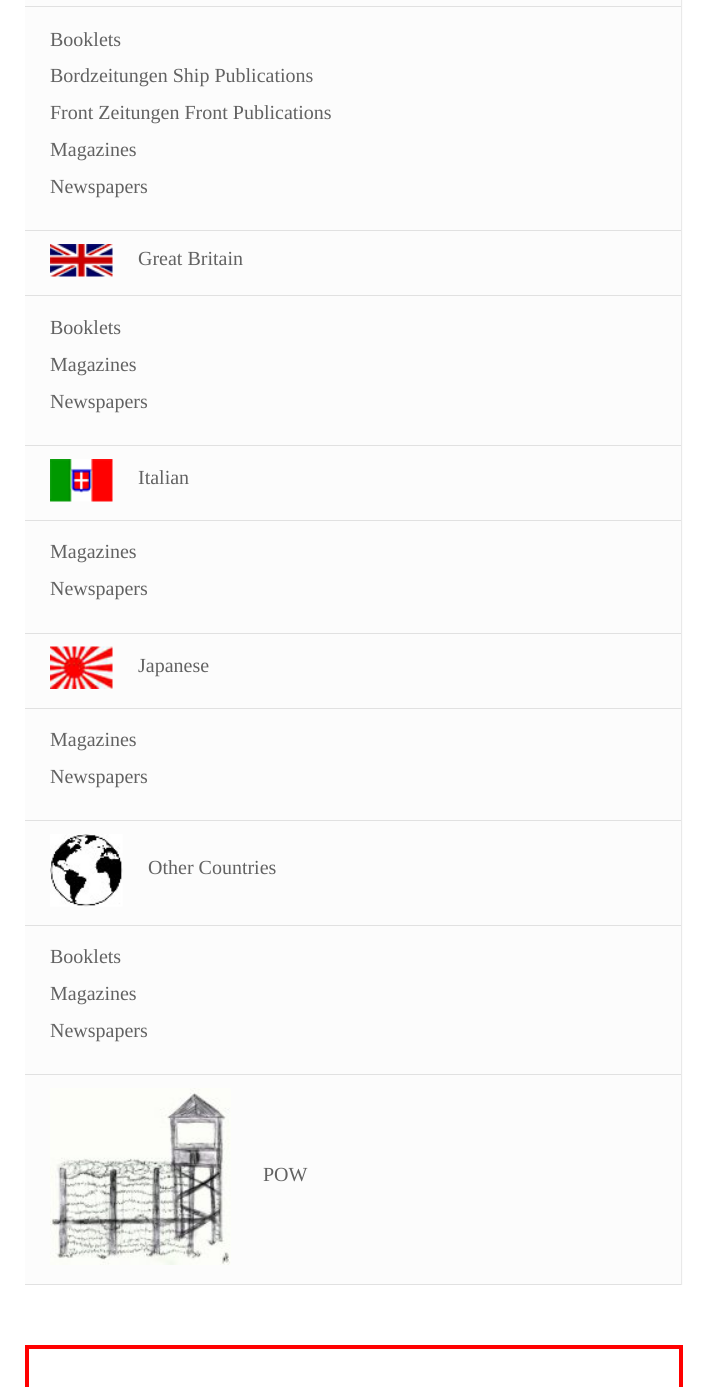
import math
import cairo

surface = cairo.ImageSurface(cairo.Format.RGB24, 707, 1387)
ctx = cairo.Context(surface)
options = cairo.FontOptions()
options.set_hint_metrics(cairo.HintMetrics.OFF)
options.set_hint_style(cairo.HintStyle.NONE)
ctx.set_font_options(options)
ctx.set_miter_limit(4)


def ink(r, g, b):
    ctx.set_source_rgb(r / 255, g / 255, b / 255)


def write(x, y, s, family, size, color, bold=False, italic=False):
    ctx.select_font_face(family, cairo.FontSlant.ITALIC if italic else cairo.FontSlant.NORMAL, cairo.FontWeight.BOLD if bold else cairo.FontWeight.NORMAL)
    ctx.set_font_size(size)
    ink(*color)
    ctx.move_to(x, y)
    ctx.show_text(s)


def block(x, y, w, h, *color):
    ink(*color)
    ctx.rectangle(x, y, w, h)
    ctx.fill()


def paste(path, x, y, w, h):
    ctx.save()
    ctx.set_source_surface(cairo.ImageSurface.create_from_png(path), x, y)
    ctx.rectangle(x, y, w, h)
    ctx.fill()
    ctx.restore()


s1 = dict(family="Liberation Serif", size=20, color=(98, 98, 98))

ink(255, 255, 255)
ctx.paint()
block(25, 0, 658, 1285, 252, 252, 252)
block(681, 0, 1, 1285, 233, 233, 233)
block(25, 1284, 656, 1, 225, 225, 225)
block(25, 6, 656, 1, 225, 225, 225)
write(50, 46, "Booklets", **s1)
write(50, 82, "Bordzeitungen Ship Publications", **s1)
write(50, 119, "Front Zeitungen Front Publications", **s1)
write(50, 156, "Magazines", **s1)
write(50, 193, "Newspapers", **s1)
block(25, 230, 656, 1, 225, 225, 225)
block(25, 295, 656, 1, 225, 225, 225)
paste("pic1.png", 50, 244, 63, 33)
write(138, 265, "Great Britain", **s1)
write(50, 334, "Booklets", **s1)
write(50, 371, "Magazines", **s1)
write(50, 408, "Newspapers", **s1)
block(25, 445, 656, 1, 225, 225, 225)
block(25, 520, 656, 1, 225, 225, 225)
paste("pic2.png", 50, 459, 63, 43)
write(138, 484, "Italian", **s1)
write(50, 558, "Magazines", **s1)
write(50, 595, "Newspapers", **s1)
block(25, 633, 656, 1, 225, 225, 225)
block(25, 708, 656, 1, 225, 225, 225)
paste("pic3.png", 50, 646, 63, 43)
write(138, 672, "Japanese", **s1)
write(50, 746, "Magazines", **s1)
write(50, 783, "Newspapers", **s1)
block(25, 820, 656, 1, 225, 225, 225)
block(25, 925, 656, 1, 225, 225, 225)
paste("pic4.png", 50, 834, 73, 73)
write(148, 874, "Other Countries", **s1)
write(50, 963, "Booklets", **s1)
write(50, 1000, "Magazines", **s1)
write(50, 1037, "Newspapers", **s1)
block(25, 1074, 656, 1, 225, 225, 225)
paste("pic5.png", 50, 1088, 181, 177)
write(263, 1181, "POW", **s1)
ctx.rectangle(27, 1347, 654, 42)
ink(255, 0, 0)
ctx.set_line_width(4)
ctx.stroke()
surface.write_to_png("screenshot.png")
